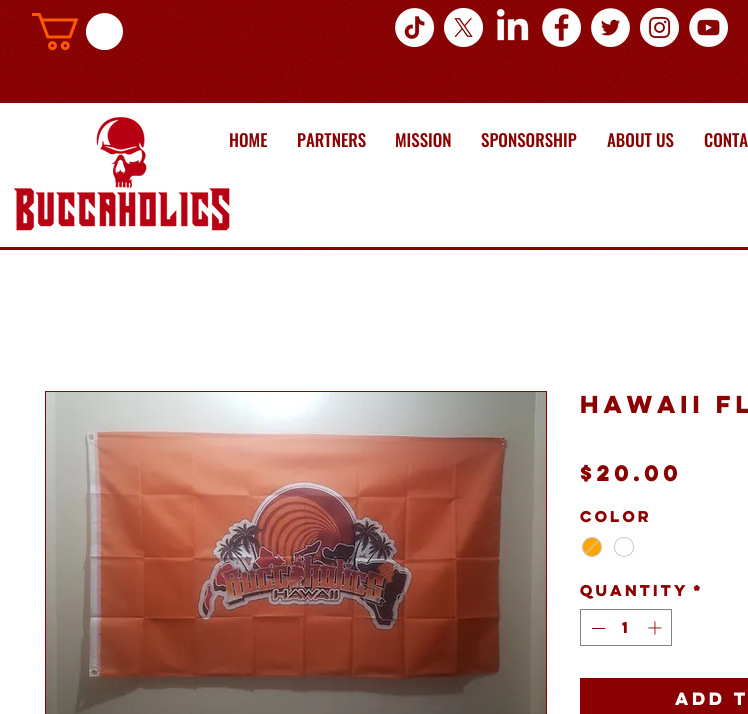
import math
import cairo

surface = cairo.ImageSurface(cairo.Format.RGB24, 748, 714)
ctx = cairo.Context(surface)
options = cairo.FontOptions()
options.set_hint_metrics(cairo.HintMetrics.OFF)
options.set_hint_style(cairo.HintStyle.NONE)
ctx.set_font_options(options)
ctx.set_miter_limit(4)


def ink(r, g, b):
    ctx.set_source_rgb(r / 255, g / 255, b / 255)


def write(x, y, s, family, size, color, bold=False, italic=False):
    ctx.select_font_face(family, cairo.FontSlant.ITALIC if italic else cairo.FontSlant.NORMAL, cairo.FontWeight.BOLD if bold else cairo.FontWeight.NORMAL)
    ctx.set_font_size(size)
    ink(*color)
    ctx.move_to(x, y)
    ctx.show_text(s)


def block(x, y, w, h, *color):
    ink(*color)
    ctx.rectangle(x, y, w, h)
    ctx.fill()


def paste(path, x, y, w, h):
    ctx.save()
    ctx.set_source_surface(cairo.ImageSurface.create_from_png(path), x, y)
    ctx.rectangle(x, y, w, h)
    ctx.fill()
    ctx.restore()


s1 = dict(family="Oswald Medium", size=17, color=(139, 0, 0))
s2 = dict(family="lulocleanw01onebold", size=22, color=(139, 0, 0), bold=True)
s3 = dict(family="lulocleanw01onebold", size=20, color=(139, 0, 0), bold=True)
s4 = dict(family="lulocleanw01onebold", size=14, color=(139, 0, 0), bold=True)
s5 = dict(family="lulocleanw01onebold", size=16, color=(255, 255, 255), bold=True)

ink(139, 0, 0)
ctx.paint()
paste("pic1.png", 0, 0, 748, 250)
paste("pic2.png", 32, 13, 91, 38)
paste("pic3.png", 395, 8, 39, 39)
paste("pic4.png", 444, 8, 39, 39)
paste("pic5.png", 496, 8, 33, 33)
paste("pic6.png", 542, 8, 39, 39)
paste("pic7.png", 591, 8, 39, 39)
paste("pic8.png", 640, 8, 39, 39)
paste("pic9.png", 689, 8, 39, 39)
block(0, 103, 748, 144, 255, 255, 255)
paste("pic10.png", 13, 117, 217, 114)
write(229, 147, "HOME", **s1)
write(297, 147, "PARTNERS", **s1)
write(395, 147, "MISSION", **s1)
write(481, 147, "SPONSORSHIP", **s1)
write(607, 147, "ABOUT US", **s1)
write(704, 147, "CONTA", **s1)
block(0, 250, 748, 464, 255, 255, 255)
ctx.rectangle(45.5, 391.5, 501, 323)
ink(139, 0, 0)
ctx.set_line_width(1)
ctx.stroke()
paste("pic11.png", 46, 392, 500, 322)
write(580, 413, "Hawaii Fl", **s2)
write(580, 481, "$20.00", **s3)
write(580, 522, "Color", **s4)
ink(255, 166, 0)
ctx.new_path()
ctx.arc(592, 547, 9.5, 0, 2 * math.pi)
ctx.fill_preserve()
ink(201, 201, 201)
ctx.stroke()
ctx.new_path()
ctx.move_to(599, 541)
ctx.line_to(586, 554)
ctx.line_to(585.5, 553)
ctx.line_to(598, 540.5)
ctx.close_path()
ctx.fill()
ctx.arc(624, 547, 9.5, 0, 2 * math.pi)
ctx.stroke()
write(580, 596, "Quantity", **s4)
write(693, 596, "*", **s4)
ctx.rectangle(580.5, 609.5, 91, 36)
ink(130, 130, 130)
ctx.stroke()
block(592, 628, 13, 1, 139, 0, 0)
write(622, 633, "1", **s4)
paste("pic12.png", 648, 621, 14, 14)
block(580, 678, 168, 36, 139, 0, 0)
write(675, 705, "Add t", **s5)
surface.write_to_png("screenshot.png")
